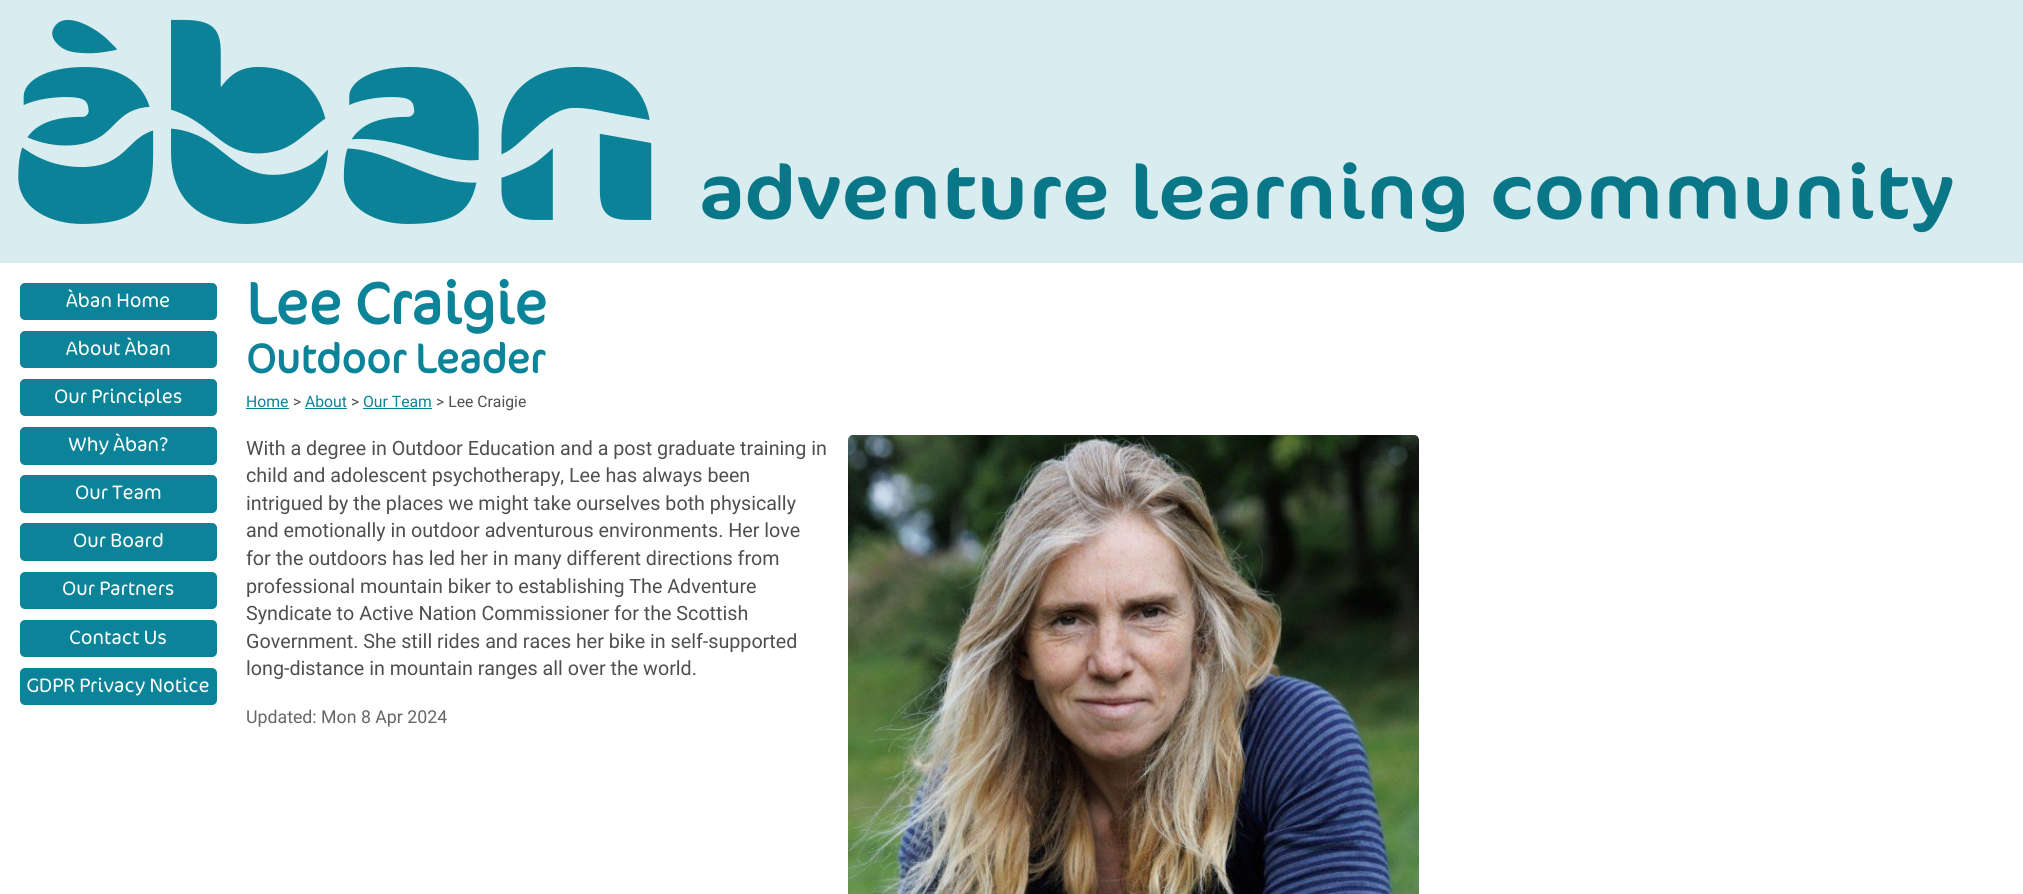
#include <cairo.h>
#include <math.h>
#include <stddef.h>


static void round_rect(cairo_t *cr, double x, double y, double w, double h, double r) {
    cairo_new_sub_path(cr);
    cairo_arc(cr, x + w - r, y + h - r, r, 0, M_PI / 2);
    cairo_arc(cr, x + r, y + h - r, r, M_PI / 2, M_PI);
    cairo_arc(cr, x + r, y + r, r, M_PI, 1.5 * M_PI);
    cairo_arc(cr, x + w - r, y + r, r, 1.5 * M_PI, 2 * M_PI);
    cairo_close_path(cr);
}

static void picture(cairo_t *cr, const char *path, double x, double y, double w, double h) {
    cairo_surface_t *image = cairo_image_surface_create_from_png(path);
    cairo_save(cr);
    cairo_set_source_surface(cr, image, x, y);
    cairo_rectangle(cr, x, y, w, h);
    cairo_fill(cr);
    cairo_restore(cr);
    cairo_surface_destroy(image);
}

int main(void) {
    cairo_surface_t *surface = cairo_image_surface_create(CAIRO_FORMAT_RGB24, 2023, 894);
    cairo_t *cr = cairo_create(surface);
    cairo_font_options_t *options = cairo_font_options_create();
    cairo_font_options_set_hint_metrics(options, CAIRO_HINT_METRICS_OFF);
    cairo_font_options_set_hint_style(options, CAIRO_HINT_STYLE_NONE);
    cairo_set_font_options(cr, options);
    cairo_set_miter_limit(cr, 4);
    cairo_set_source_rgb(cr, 1, 1, 1);
    cairo_paint(cr);
    cairo_set_source_rgb(cr, 0.851, 0.925, 0.937);
    cairo_rectangle(cr, 0, 0, 2023, 263);
    cairo_fill(cr);
    picture(cr, "img1.png", 18, 19, 1935, 214);
    cairo_set_source_rgb(cr, 0.043, 0.514, 0.596);
    round_rect(cr, 20, 283, 197, 37, 5);
    cairo_fill(cr);
    cairo_select_font_face(cr, "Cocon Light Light", CAIRO_FONT_SLANT_NORMAL, CAIRO_FONT_WEIGHT_NORMAL);
    cairo_set_font_size(cr, 19.7);
    cairo_set_source_rgb(cr, 0.988, 0.988, 0.988);
    cairo_move_to(cr, 66, 307);
    cairo_show_text(cr, "Àban Home");
    cairo_set_source_rgb(cr, 0.043, 0.514, 0.596);
    round_rect(cr, 20, 331, 197, 37, 5);
    cairo_fill(cr);
    cairo_set_source_rgb(cr, 0.988, 0.988, 0.988);
    cairo_move_to(cr, 66, 355);
    cairo_show_text(cr, "About Àban");
    cairo_set_source_rgb(cr, 0.043, 0.514, 0.596);
    round_rect(cr, 20, 379, 197, 37, 5);
    cairo_fill(cr);
    cairo_set_source_rgb(cr, 0.988, 0.988, 0.988);
    cairo_move_to(cr, 54, 403);
    cairo_show_text(cr, "Our Principles");
    cairo_set_source_rgb(cr, 0.043, 0.514, 0.596);
    round_rect(cr, 20, 427, 197, 38, 5);
    cairo_fill(cr);
    cairo_set_source_rgb(cr, 0.988, 0.988, 0.988);
    cairo_move_to(cr, 68, 451);
    cairo_show_text(cr, "Why Àban?");
    cairo_set_source_rgb(cr, 0.043, 0.514, 0.596);
    round_rect(cr, 20, 475, 197, 38, 5);
    cairo_fill(cr);
    cairo_set_source_rgb(cr, 0.988, 0.988, 0.988);
    cairo_move_to(cr, 75, 499);
    cairo_show_text(cr, "Our Team");
    cairo_set_source_rgb(cr, 0.043, 0.514, 0.596);
    round_rect(cr, 20, 523, 197, 38, 5);
    cairo_fill(cr);
    cairo_set_source_rgb(cr, 0.988, 0.988, 0.988);
    cairo_move_to(cr, 73, 547);
    cairo_show_text(cr, "Our Board");
    cairo_set_source_rgb(cr, 0.043, 0.514, 0.596);
    round_rect(cr, 20, 572, 197, 37, 5);
    cairo_fill(cr);
    cairo_set_source_rgb(cr, 0.988, 0.988, 0.988);
    cairo_move_to(cr, 62, 595);
    cairo_show_text(cr, "Our Partners");
    cairo_set_source_rgb(cr, 0.043, 0.514, 0.596);
    round_rect(cr, 20, 620, 197, 37, 5);
    cairo_fill(cr);
    cairo_set_source_rgb(cr, 0.988, 0.988, 0.988);
    cairo_move_to(cr, 69, 644);
    cairo_show_text(cr, "Contact Us");
    cairo_set_source_rgb(cr, 0.043, 0.514, 0.596);
    round_rect(cr, 20, 668, 197, 37, 5);
    cairo_fill(cr);
    cairo_set_source_rgb(cr, 0.988, 0.988, 0.988);
    cairo_move_to(cr, 26, 692);
    cairo_show_text(cr, "GDPR Privacy Notice");
    cairo_select_font_face(cr, "Cocon Light", CAIRO_FONT_SLANT_NORMAL, CAIRO_FONT_WEIGHT_BOLD);
    cairo_set_font_size(cr, 59);
    cairo_set_source_rgb(cr, 0.043, 0.514, 0.596);
    cairo_move_to(cr, 246, 324);
    cairo_show_text(cr, "Lee Craigie");
    cairo_set_font_size(cr, 41.5);
    cairo_move_to(cr, 246, 373);
    cairo_show_text(cr, "Outdoor Leader");
    cairo_select_font_face(cr, "Roboto", CAIRO_FONT_SLANT_NORMAL, CAIRO_FONT_WEIGHT_NORMAL);
    cairo_set_font_size(cr, 15.75);
    cairo_move_to(cr, 246, 407);
    cairo_show_text(cr, "Home");
    cairo_set_source_rgb(cr, 0.043, 0.522, 0.596);
    cairo_rectangle(cr, 246, 408, 43, 1);
    cairo_fill(cr);
    cairo_set_source_rgb(cr, 0.31, 0.31, 0.31);
    cairo_move_to(cr, 293, 407);
    cairo_show_text(cr, ">");
    cairo_set_source_rgb(cr, 0.043, 0.514, 0.596);
    cairo_move_to(cr, 305, 407);
    cairo_show_text(cr, "About");
    cairo_set_source_rgb(cr, 0.043, 0.522, 0.596);
    cairo_rectangle(cr, 305, 408, 42, 1);
    cairo_fill(cr);
    cairo_set_source_rgb(cr, 0.31, 0.31, 0.31);
    cairo_move_to(cr, 351, 407);
    cairo_show_text(cr, ">");
    cairo_set_source_rgb(cr, 0.043, 0.514, 0.596);
    cairo_move_to(cr, 363, 407);
    cairo_show_text(cr, "Our Team");
    cairo_set_source_rgb(cr, 0.043, 0.522, 0.596);
    cairo_rectangle(cr, 363, 408, 69, 1);
    cairo_fill(cr);
    cairo_set_source_rgb(cr, 0.31, 0.31, 0.31);
    cairo_move_to(cr, 436, 407);
    cairo_show_text(cr, "> Lee Craigie");
    cairo_set_font_size(cr, 19.7);
    cairo_move_to(cr, 246, 455);
    cairo_show_text(cr, "With a degree in Outdoor Education and a post graduate training in");
    cairo_move_to(cr, 246, 482);
    cairo_show_text(cr, "child and adolescent psychotherapy, Lee has always been");
    cairo_move_to(cr, 246, 510);
    cairo_show_text(cr, "intrigued by the places we might take ourselves both physically");
    cairo_move_to(cr, 246, 537);
    cairo_show_text(cr, "and emotionally in outdoor adventurous environments. Her love");
    cairo_move_to(cr, 246, 565);
    cairo_show_text(cr, "for the outdoors has led her in many different directions from");
    cairo_move_to(cr, 246, 593);
    cairo_show_text(cr, "professional mountain biker to establishing The Adventure");
    cairo_move_to(cr, 246, 620);
    cairo_show_text(cr, "Syndicate to Active Nation Commissioner for the Scottish");
    cairo_move_to(cr, 246, 648);
    cairo_show_text(cr, "Government. She still rides and races her bike in self-supported");
    cairo_move_to(cr, 246, 675);
    cairo_show_text(cr, "long-distance in mountain ranges all over the world.");
    picture(cr, "img2.png", 848, 435, 571, 459);
    cairo_set_font_size(cr, 17.75);
    cairo_set_source_rgb(cr, 0.4, 0.4, 0.4);
    cairo_move_to(cr, 246, 723);
    cairo_show_text(cr, "Updated: Mon 8 Apr 2024");
    cairo_surface_write_to_png(surface, "page.png");
    cairo_font_options_destroy(options);
    cairo_destroy(cr);
    cairo_surface_destroy(surface);
    return 0;
}
